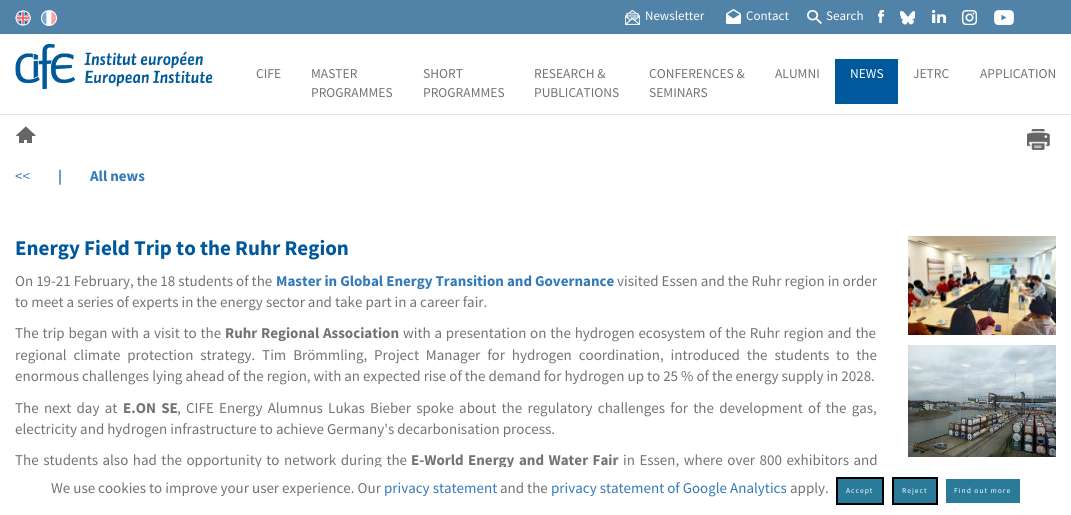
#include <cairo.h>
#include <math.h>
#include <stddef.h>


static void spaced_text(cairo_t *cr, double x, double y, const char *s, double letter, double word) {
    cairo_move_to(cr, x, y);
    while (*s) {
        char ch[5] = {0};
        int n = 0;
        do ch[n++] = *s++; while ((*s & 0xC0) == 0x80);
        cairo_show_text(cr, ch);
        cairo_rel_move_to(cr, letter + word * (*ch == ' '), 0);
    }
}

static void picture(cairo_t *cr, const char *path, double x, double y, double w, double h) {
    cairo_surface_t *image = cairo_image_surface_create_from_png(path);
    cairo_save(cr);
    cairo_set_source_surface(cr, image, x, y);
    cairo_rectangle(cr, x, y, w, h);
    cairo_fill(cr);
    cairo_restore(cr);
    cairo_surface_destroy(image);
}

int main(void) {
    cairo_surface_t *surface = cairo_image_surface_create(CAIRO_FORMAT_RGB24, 1071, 515);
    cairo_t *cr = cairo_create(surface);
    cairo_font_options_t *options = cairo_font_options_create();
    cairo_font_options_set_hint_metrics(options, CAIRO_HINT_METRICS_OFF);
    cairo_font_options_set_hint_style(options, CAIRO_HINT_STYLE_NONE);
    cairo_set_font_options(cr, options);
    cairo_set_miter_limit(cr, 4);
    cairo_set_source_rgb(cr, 1, 1, 1);
    cairo_paint(cr);
    cairo_set_source_rgb(cr, 0.318, 0.51, 0.659);
    cairo_rectangle(cr, 0, 0, 1071, 34);
    cairo_fill(cr);
    picture(cr, "img1.png", 15, 10, 16, 16);
    picture(cr, "img2.png", 41, 10, 16, 16);
    picture(cr, "img3.png", 625, 10, 15, 15);
    cairo_select_font_face(cr, "Source Sans Pro", CAIRO_FONT_SLANT_NORMAL, CAIRO_FONT_WEIGHT_NORMAL);
    cairo_set_font_size(cr, 13);
    cairo_set_source_rgb(cr, 1, 1, 1);
    cairo_move_to(cr, 645, 20);
    cairo_show_text(cr, "Newsletter");
    picture(cr, "img4.png", 726, 9, 15, 15);
    cairo_move_to(cr, 746, 20);
    cairo_show_text(cr, "Contact");
    picture(cr, "img5.png", 807, 10, 15, 14);
    cairo_move_to(cr, 826, 20);
    cairo_show_text(cr, "Search");
    picture(cr, "img6.png", 878, 10, 6, 13);
    picture(cr, "img7.png", 900, 10, 15, 15);
    picture(cr, "img8.png", 932, 10, 14, 13);
    picture(cr, "img9.png", 962, 10, 15, 15);
    picture(cr, "img10.png", 994, 10, 20, 15);
    picture(cr, "img11.png", 15, 44, 198, 45);
    cairo_set_font_size(cr, 13.5);
    cairo_set_source_rgb(cr, 0.451, 0.451, 0.451);
    cairo_move_to(cr, 256, 78);
    cairo_show_text(cr, "CIFE");
    cairo_move_to(cr, 311, 78);
    cairo_show_text(cr, "MASTER");
    cairo_move_to(cr, 311, 97);
    cairo_show_text(cr, "PROGRAMMES");
    cairo_move_to(cr, 423, 78);
    cairo_show_text(cr, "SHORT");
    cairo_move_to(cr, 423, 97);
    cairo_show_text(cr, "PROGRAMMES");
    cairo_move_to(cr, 534, 78);
    cairo_show_text(cr, "RESEARCH &");
    cairo_move_to(cr, 534, 97);
    cairo_show_text(cr, "PUBLICATIONS");
    cairo_move_to(cr, 649, 78);
    cairo_show_text(cr, "CONFERENCES &");
    cairo_move_to(cr, 649, 97);
    cairo_show_text(cr, "SEMINARS");
    cairo_move_to(cr, 775, 78);
    cairo_show_text(cr, "ALUMNI");
    cairo_set_source_rgb(cr, 0, 0.345, 0.612);
    cairo_rectangle(cr, 835, 59, 63, 45);
    cairo_fill(cr);
    cairo_set_source_rgb(cr, 1, 1, 1);
    cairo_move_to(cr, 850, 78);
    cairo_show_text(cr, "NEWS");
    cairo_set_source_rgb(cr, 0.451, 0.451, 0.451);
    cairo_move_to(cr, 913, 78);
    cairo_show_text(cr, "JETRC");
    cairo_move_to(cr, 980, 78);
    cairo_show_text(cr, "APPLICATION");
    cairo_set_source_rgb(cr, 0.902, 0.902, 0.902);
    cairo_rectangle(cr, 0, 114, 1071, 1);
    cairo_fill(cr);
    picture(cr, "img12.png", 15, 126, 21, 17);
    picture(cr, "img13.png", 1027, 129, 23, 21);
    cairo_set_font_size(cr, 15);
    cairo_set_source_rgb(cr, 0.2, 0.478, 0.718);
    cairo_move_to(cr, 15, 181);
    cairo_show_text(cr, "<<");
    cairo_select_font_face(cr, "Source Sans Pro", CAIRO_FONT_SLANT_NORMAL, CAIRO_FONT_WEIGHT_BOLD);
    cairo_move_to(cr, 58, 181);
    cairo_show_text(cr, "|");
    cairo_move_to(cr, 90, 181);
    cairo_show_text(cr, "All news");
    cairo_set_font_size(cr, 21);
    cairo_set_source_rgb(cr, 0, 0.345, 0.612);
    cairo_move_to(cr, 15, 255);
    cairo_show_text(cr, "Energy Field Trip to the Ruhr Region");
    cairo_select_font_face(cr, "Source Sans Pro", CAIRO_FONT_SLANT_NORMAL, CAIRO_FONT_WEIGHT_NORMAL);
    cairo_set_font_size(cr, 15);
    cairo_set_source_rgb(cr, 0.451, 0.451, 0.451);
    cairo_move_to(cr, 15, 286);
    cairo_show_text(cr, "On 19-21 February, the 18 students of the");
    cairo_select_font_face(cr, "Source Sans Pro", CAIRO_FONT_SLANT_NORMAL, CAIRO_FONT_WEIGHT_BOLD);
    cairo_set_source_rgb(cr, 0.2, 0.478, 0.718);
    cairo_move_to(cr, 276, 286);
    cairo_show_text(cr, "Master in Global Energy Transition and Governance");
    cairo_select_font_face(cr, "Source Sans Pro", CAIRO_FONT_SLANT_NORMAL, CAIRO_FONT_WEIGHT_NORMAL);
    cairo_set_source_rgb(cr, 0.451, 0.451, 0.451);
    cairo_move_to(cr, 617, 286);
    cairo_show_text(cr, "visited Essen and the Ruhr region in order");
    cairo_move_to(cr, 15, 307);
    cairo_show_text(cr, "to meet a series of experts in the energy sector and take part in a career fair.");
    spaced_text(cr, 15, 338, "The trip began with a visit to the", 0, 0.75);
    cairo_select_font_face(cr, "Source Sans Pro", CAIRO_FONT_SLANT_NORMAL, CAIRO_FONT_WEIGHT_BOLD);
    spaced_text(cr, 225, 338, "Ruhr Regional Association", 0, 0.75);
    cairo_select_font_face(cr, "Source Sans Pro", CAIRO_FONT_SLANT_NORMAL, CAIRO_FONT_WEIGHT_NORMAL);
    spaced_text(cr, 403, 338, "with a presentation on the hydrogen ecosystem of the Ruhr region and the", 0, 0.75);
    spaced_text(cr, 15, 360, "regional climate protection strategy. Tim Brömmling, Project Manager for hydrogen coordination, introduced the students to the", 0, 3.9);
    cairo_move_to(cr, 15, 381);
    cairo_show_text(cr, "enormous challenges lying ahead of the region, with an expected rise of the demand for hydrogen up to 25 % of the energy supply in 2028.");
    spaced_text(cr, 15, 413, "The next day at", 0, 2.25);
    cairo_select_font_face(cr, "Source Sans Pro", CAIRO_FONT_SLANT_NORMAL, CAIRO_FONT_WEIGHT_BOLD);
    spaced_text(cr, 123, 413, "E.ON SE", 0, 2.25);
    cairo_select_font_face(cr, "Source Sans Pro", CAIRO_FONT_SLANT_NORMAL, CAIRO_FONT_WEIGHT_NORMAL);
    spaced_text(cr, 177, 413, ", CIFE Energy Alumnus Lukas Bieber spoke about the regulatory challenges for the development of the gas,", 0, 2.25);
    cairo_move_to(cr, 15, 434);
    cairo_show_text(cr, "electricity and hydrogen infrastructure to achieve Germany's decarbonisation process.");
    spaced_text(cr, 15, 465, "The students also had the opportunity to network during the", 0, 1.5);
    cairo_select_font_face(cr, "Source Sans Pro", CAIRO_FONT_SLANT_NORMAL, CAIRO_FONT_WEIGHT_BOLD);
    spaced_text(cr, 411, 465, "E-World Energy and Water Fair", 0, 1.5);
    cairo_select_font_face(cr, "Source Sans Pro", CAIRO_FONT_SLANT_NORMAL, CAIRO_FONT_WEIGHT_NORMAL);
    spaced_text(cr, 623, 465, "in Essen, where over 800 exhibitors and", 0, 1.5);
    picture(cr, "img14.png", 908, 236, 148, 99);
    picture(cr, "img15.png", 908, 345, 148, 112);
    cairo_set_source_rgb(cr, 1, 1, 1);
    cairo_rectangle(cr, 195, 467, 483, 2);
    cairo_fill(cr);
    cairo_set_source_rgb(cr, 0.451, 0.451, 0.451);
    cairo_move_to(cr, 51, 493);
    cairo_show_text(cr, "We use cookies to improve your user experience. Our");
    cairo_set_source_rgb(cr, 0.2, 0.478, 0.718);
    cairo_move_to(cr, 384, 493);
    cairo_show_text(cr, "privacy statement");
    cairo_set_source_rgb(cr, 0.451, 0.451, 0.451);
    cairo_move_to(cr, 500, 493);
    cairo_show_text(cr, "and the");
    cairo_set_source_rgb(cr, 0.2, 0.478, 0.718);
    cairo_move_to(cr, 551, 493);
    cairo_show_text(cr, "privacy statement of Google Analytics");
    cairo_set_source_rgb(cr, 0.451, 0.451, 0.451);
    cairo_move_to(cr, 790, 493);
    cairo_show_text(cr, "apply.");
    cairo_set_source_rgb(cr, 0.165, 0.478, 0.6);
    cairo_rectangle(cr, 837, 478, 46, 26);
    cairo_fill_preserve(cr);
    cairo_set_source_rgb(cr, 0, 0, 0);
    cairo_stroke(cr);
    cairo_set_font_size(cr, 7.5);
    cairo_set_source_rgb(cr, 1, 1, 1);
    spaced_text(cr, 846, 493, "Accept", 1, 0);
    cairo_set_source_rgb(cr, 0.165, 0.478, 0.6);
    cairo_rectangle(cr, 893, 478, 44, 26);
    cairo_fill_preserve(cr);
    cairo_set_source_rgb(cr, 0, 0, 0);
    cairo_stroke(cr);
    cairo_set_source_rgb(cr, 1, 1, 1);
    spaced_text(cr, 902, 493, "Reject", 1, 0);
    cairo_set_source_rgb(cr, 0.165, 0.478, 0.6);
    cairo_rectangle(cr, 946, 479, 74, 24);
    cairo_fill(cr);
    cairo_set_source_rgb(cr, 1, 1, 1);
    spaced_text(cr, 954, 493, "Find out more", 1, 0);
    cairo_surface_write_to_png(surface, "page.png");
    cairo_font_options_destroy(options);
    cairo_destroy(cr);
    cairo_surface_destroy(surface);
    return 0;
}
